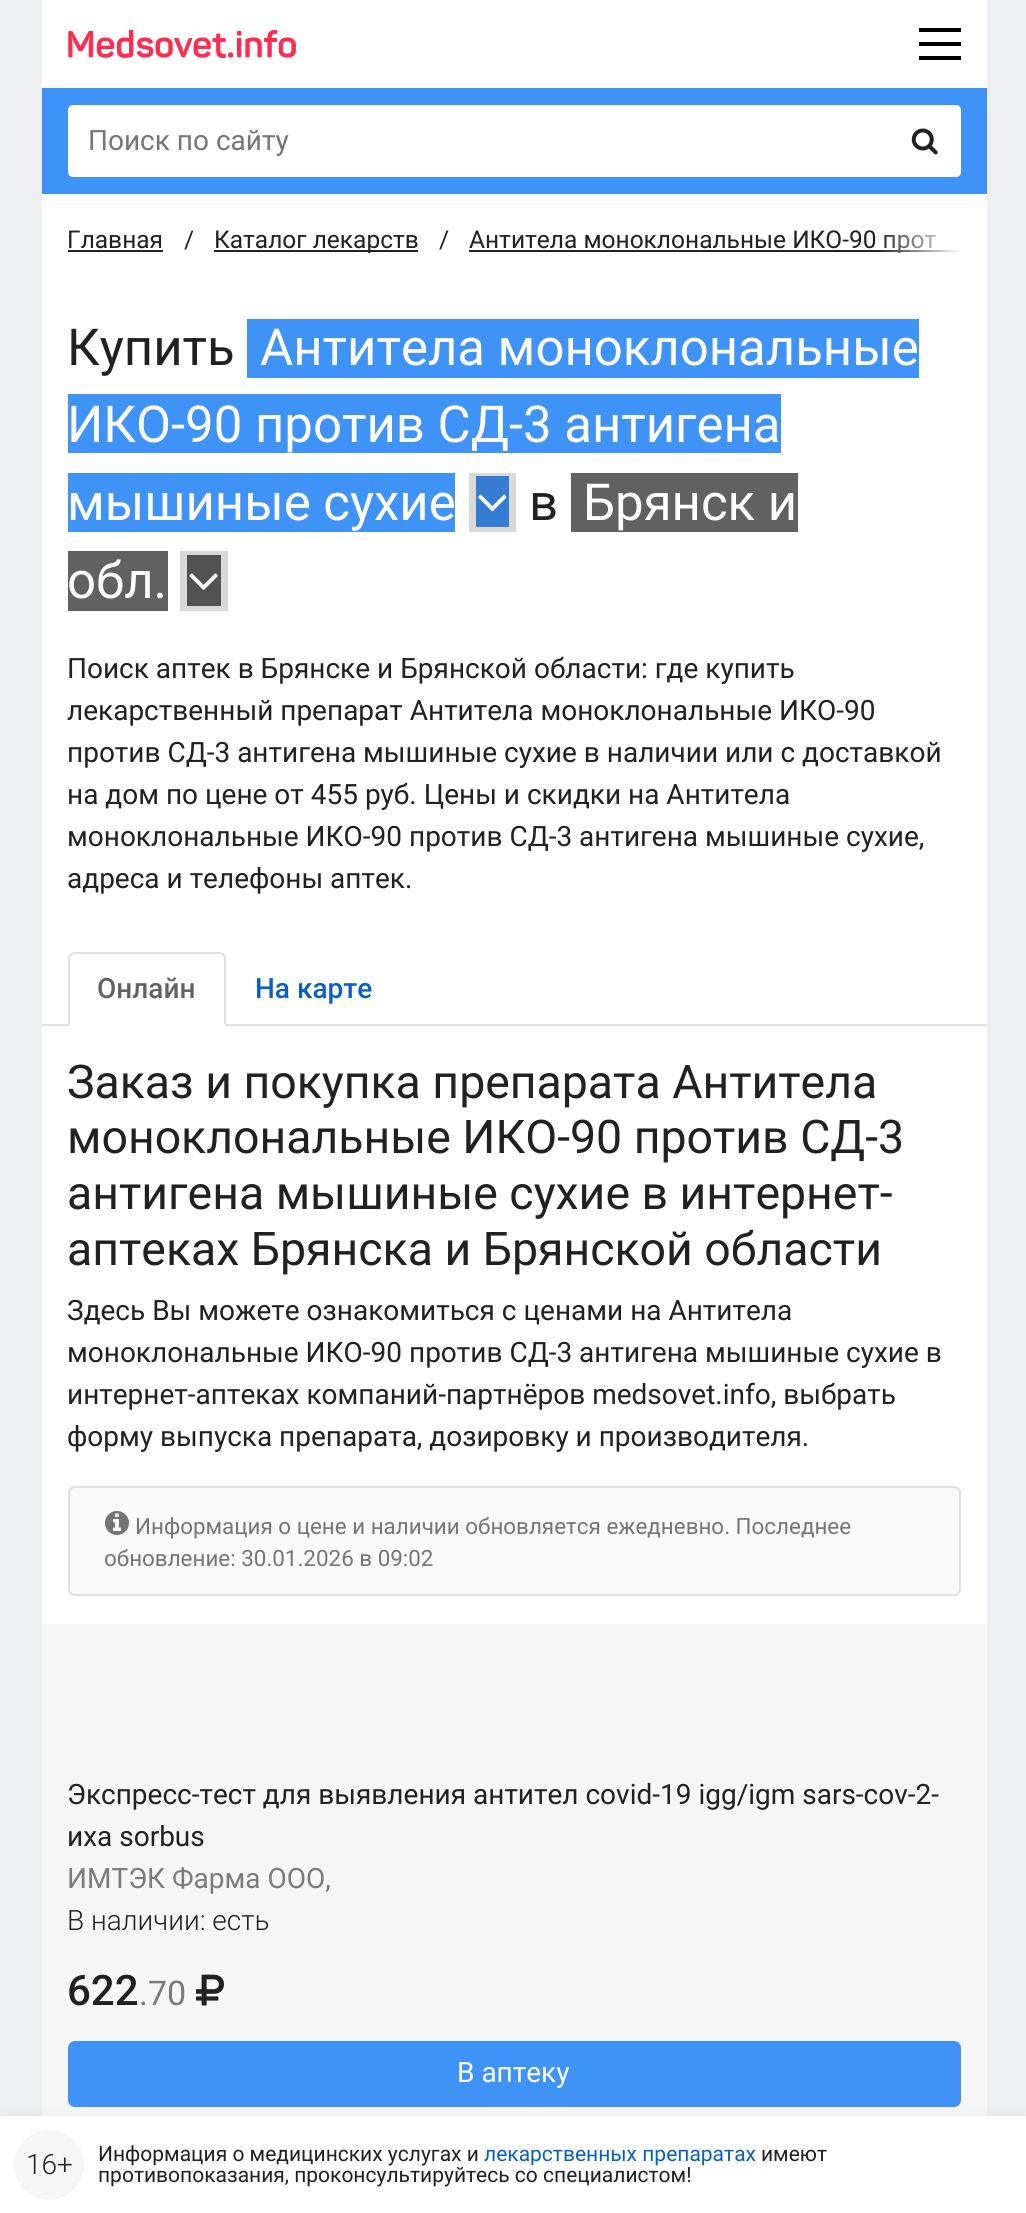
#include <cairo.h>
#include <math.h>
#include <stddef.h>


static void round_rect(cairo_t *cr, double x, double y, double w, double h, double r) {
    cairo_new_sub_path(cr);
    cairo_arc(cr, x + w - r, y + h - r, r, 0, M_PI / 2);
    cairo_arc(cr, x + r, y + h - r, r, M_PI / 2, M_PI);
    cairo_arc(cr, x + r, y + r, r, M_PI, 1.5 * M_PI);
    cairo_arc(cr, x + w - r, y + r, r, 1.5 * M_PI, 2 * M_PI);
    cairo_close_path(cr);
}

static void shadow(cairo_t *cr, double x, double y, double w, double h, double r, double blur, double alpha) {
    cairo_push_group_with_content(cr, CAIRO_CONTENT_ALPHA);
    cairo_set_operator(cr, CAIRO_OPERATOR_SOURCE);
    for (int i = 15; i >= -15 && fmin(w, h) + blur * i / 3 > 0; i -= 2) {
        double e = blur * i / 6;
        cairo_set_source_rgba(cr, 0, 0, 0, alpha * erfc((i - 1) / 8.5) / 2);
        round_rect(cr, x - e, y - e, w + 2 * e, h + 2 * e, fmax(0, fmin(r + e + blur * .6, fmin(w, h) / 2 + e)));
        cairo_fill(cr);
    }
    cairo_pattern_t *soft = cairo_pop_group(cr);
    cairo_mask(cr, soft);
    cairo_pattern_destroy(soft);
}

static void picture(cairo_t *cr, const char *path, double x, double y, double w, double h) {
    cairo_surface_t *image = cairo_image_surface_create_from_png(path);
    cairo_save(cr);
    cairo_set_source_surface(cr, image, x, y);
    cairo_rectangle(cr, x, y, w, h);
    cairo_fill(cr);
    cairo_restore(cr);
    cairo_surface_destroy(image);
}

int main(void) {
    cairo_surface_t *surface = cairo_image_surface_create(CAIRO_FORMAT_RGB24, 1026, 2213);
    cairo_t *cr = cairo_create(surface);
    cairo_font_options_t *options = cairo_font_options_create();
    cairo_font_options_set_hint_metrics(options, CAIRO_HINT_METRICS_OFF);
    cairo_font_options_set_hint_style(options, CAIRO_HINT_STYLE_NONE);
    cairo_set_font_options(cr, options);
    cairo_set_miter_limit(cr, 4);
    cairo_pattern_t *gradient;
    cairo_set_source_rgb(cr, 0.929, 0.937, 0.949);
    cairo_paint(cr);
    cairo_set_source_rgb(cr, 1, 1, 1);
    cairo_rectangle(cr, 42, 0, 945, 88);
    cairo_fill(cr);
    picture(cr, "img1.png", 68, 30, 228, 28);
    cairo_set_source_rgb(cr, 0, 0, 0);
    cairo_rectangle(cr, 919, 28, 42, 4);
    cairo_fill(cr);
    cairo_rectangle(cr, 919, 42, 42, 4);
    cairo_fill(cr);
    cairo_rectangle(cr, 919, 56, 42, 4);
    cairo_fill(cr);
    cairo_set_source_rgb(cr, 0.247, 0.576, 0.965);
    cairo_rectangle(cr, 42, 88, 945, 106);
    cairo_fill(cr);
    cairo_set_source_rgb(cr, 1, 1, 1);
    round_rect(cr, 68, 105, 893, 72, 5);
    cairo_fill(cr);
    cairo_select_font_face(cr, "Roboto", CAIRO_FONT_SLANT_NORMAL, CAIRO_FONT_WEIGHT_NORMAL);
    cairo_set_font_size(cr, 28);
    cairo_set_source_rgb(cr, 0.459, 0.459, 0.459);
    cairo_move_to(cr, 88, 150);
    cairo_show_text(cr, "Поиск по сайту");
    picture(cr, "img2.png", 911, 128, 27, 27);
    cairo_set_source_rgb(cr, 1, 1, 1);
    cairo_rectangle(cr, 42, 194, 945, 1430);
    cairo_fill(cr);
    cairo_set_source_rgb(cr, 0.851, 0.851, 0.851);
    cairo_rectangle(cr, 180, 551, 48, 60);
    cairo_fill(cr);
    cairo_rectangle(cr, 469, 473, 47, 59);
    cairo_fill(cr);
    cairo_set_font_size(cr, 24.5);
    cairo_set_source_rgb(cr, 0.129, 0.129, 0.129);
    cairo_move_to(cr, 67, 248);
    cairo_show_text(cr, "Главная");
    cairo_rectangle(cr, 68, 250, 95, 2);
    cairo_fill(cr);
    cairo_move_to(cr, 184, 248);
    cairo_show_text(cr, "/");
    cairo_rectangle(cr, 214, 250, 204, 2);
    cairo_fill(cr);
    cairo_move_to(cr, 214, 248);
    cairo_show_text(cr, "Каталог лекарств");
    cairo_move_to(cr, 439, 248);
    cairo_show_text(cr, "/");
    cairo_rectangle(cr, 469, 250, 492, 2);
    cairo_fill(cr);
    cairo_move_to(cr, 469, 248);
    cairo_show_text(cr, "Антитела моноклональные ИКО-90 прот");
    gradient = cairo_pattern_create_linear(877, 241, 961, 241);
    cairo_pattern_add_color_stop_rgba(gradient, 0, 1, 1, 1, 0);
    cairo_pattern_add_color_stop_rgba(gradient, 1, 1, 1, 1, 1);
    cairo_set_source(cr, gradient);
    cairo_pattern_destroy(gradient);
    cairo_rectangle(cr, 879, 234, 82, 19);
    cairo_fill(cr);
    cairo_set_font_size(cr, 50.9);
    cairo_set_source_rgb(cr, 0.129, 0.129, 0.129);
    cairo_move_to(cr, 67, 365);
    cairo_show_text(cr, "Купить");
    cairo_set_source_rgb(cr, 0.247, 0.576, 0.965);
    cairo_rectangle(cr, 247, 319, 672, 59);
    cairo_fill(cr);
    cairo_set_source_rgb(cr, 1, 1, 1);
    cairo_move_to(cr, 260, 365);
    cairo_show_text(cr, "Антитела моноклональные");
    cairo_set_source_rgb(cr, 0.247, 0.576, 0.965);
    cairo_rectangle(cr, 68, 394, 713, 59);
    cairo_fill(cr);
    cairo_set_source_rgb(cr, 1, 1, 1);
    cairo_move_to(cr, 67, 442);
    cairo_show_text(cr, "ИКО-90 против СД-3 антигена");
    cairo_set_source_rgb(cr, 0.247, 0.576, 0.965);
    cairo_rectangle(cr, 68, 473, 387, 59);
    cairo_fill(cr);
    cairo_set_source_rgb(cr, 1, 1, 1);
    cairo_move_to(cr, 67, 520);
    cairo_show_text(cr, "мышиные сухие");
    cairo_set_source_rgb(cr, 0.212, 0.49, 0.82);
    cairo_rectangle(cr, 476, 476, 33, 51);
    cairo_fill(cr);
    picture(cr, "img3.png", 478, 494, 29, 18);
    cairo_set_source_rgb(cr, 0.129, 0.129, 0.129);
    cairo_move_to(cr, 529, 520);
    cairo_show_text(cr, "в");
    cairo_set_source_rgb(cr, 0.38, 0.38, 0.38);
    cairo_rectangle(cr, 571, 473, 227, 59);
    cairo_fill(cr);
    cairo_set_source_rgb(cr, 1, 1, 1);
    cairo_move_to(cr, 583, 520);
    cairo_show_text(cr, "Брянск и");
    cairo_set_source_rgb(cr, 0.38, 0.38, 0.38);
    cairo_rectangle(cr, 68, 551, 100, 60);
    cairo_fill(cr);
    cairo_set_source_rgb(cr, 1, 1, 1);
    cairo_move_to(cr, 67, 598);
    cairo_show_text(cr, "обл.");
    cairo_set_source_rgb(cr, 0.322, 0.322, 0.322);
    cairo_rectangle(cr, 187, 555, 34, 51);
    cairo_fill(cr);
    picture(cr, "img4.png", 189, 573, 29, 17);
    cairo_set_font_size(cr, 28);
    cairo_set_source_rgb(cr, 0.129, 0.129, 0.129);
    cairo_move_to(cr, 67, 678);
    cairo_show_text(cr, "Поиск аптек в Брянске и Брянской области: где купить");
    cairo_move_to(cr, 67, 720);
    cairo_show_text(cr, "лекарственный препарат Антитела моноклональные ИКО-90");
    cairo_move_to(cr, 67, 762);
    cairo_show_text(cr, "против СД-3 антигена мышиные сухие в наличии или с доставкой");
    cairo_move_to(cr, 67, 804);
    cairo_show_text(cr, "на дом по цене от 455 руб. Цены и скидки на Антитела");
    cairo_move_to(cr, 67, 846);
    cairo_show_text(cr, "моноклональные ИКО-90 против СД-3 антигена мышиные сухие,");
    cairo_move_to(cr, 67, 888);
    cairo_show_text(cr, "адреса и телефоны аптек.");
    cairo_set_source_rgb(cr, 0.878, 0.878, 0.878);
    cairo_rectangle(cr, 42, 1024, 945, 2);
    cairo_fill(cr);
    cairo_set_source_rgb(cr, 1, 1, 1);
    cairo_new_path(cr);
    cairo_move_to(cr, 75, 952);
    cairo_line_to(cr, 219, 952);
    cairo_curve_to(cr, 223, 952, 226, 955, 226, 959);
    cairo_line_to(cr, 226, 1026);
    cairo_line_to(cr, 68, 1026);
    cairo_line_to(cr, 68, 959);
    cairo_curve_to(cr, 68, 955, 71, 952, 75, 952);
    cairo_close_path(cr);
    cairo_fill(cr);
    cairo_set_source_rgb(cr, 0.878, 0.878, 0.878);
    cairo_new_path(cr);
    cairo_move_to(cr, 75, 952);
    cairo_curve_to(cr, 73, 952, 71, 953, 70, 954);
    cairo_line_to(cr, 72, 955);
    cairo_curve_to(cr, 72, 954, 74, 954, 75, 954);
    cairo_line_to(cr, 219, 954);
    cairo_curve_to(cr, 220, 954, 222, 954, 222, 955);
    cairo_line_to(cr, 224, 954);
    cairo_curve_to(cr, 223, 953, 221, 952, 219, 952);
    cairo_close_path(cr);
    cairo_fill(cr);
    cairo_new_path(cr);
    cairo_move_to(cr, 224, 954);
    cairo_line_to(cr, 226, 957);
    cairo_line_to(cr, 226, 1026);
    cairo_line_to(cr, 224, 1024);
    cairo_line_to(cr, 224, 958);
    cairo_line_to(cr, 222, 955);
    cairo_close_path(cr);
    cairo_fill(cr);
    cairo_set_source_rgb(cr, 1, 1, 1);
    cairo_new_path(cr);
    cairo_move_to(cr, 226, 1026);
    cairo_line_to(cr, 224, 1024);
    cairo_line_to(cr, 70, 1024);
    cairo_line_to(cr, 68, 1026);
    cairo_close_path(cr);
    cairo_fill(cr);
    cairo_set_source_rgb(cr, 0.878, 0.878, 0.878);
    cairo_new_path(cr);
    cairo_move_to(cr, 68, 1026);
    cairo_line_to(cr, 68, 957);
    cairo_line_to(cr, 70, 954);
    cairo_line_to(cr, 72, 955);
    cairo_line_to(cr, 70, 958);
    cairo_line_to(cr, 70, 1024);
    cairo_close_path(cr);
    cairo_fill(cr);
    cairo_select_font_face(cr, "Roboto Medium", CAIRO_FONT_SLANT_NORMAL, CAIRO_FONT_WEIGHT_NORMAL);
    cairo_set_source_rgb(cr, 0.38, 0.38, 0.38);
    cairo_move_to(cr, 97, 998);
    cairo_show_text(cr, "Онлайн");
    cairo_set_source_rgb(cr, 0.035, 0.376, 0.776);
    cairo_move_to(cr, 255, 998);
    cairo_show_text(cr, "На карте");
    cairo_select_font_face(cr, "Roboto", CAIRO_FONT_SLANT_NORMAL, CAIRO_FONT_WEIGHT_NORMAL);
    cairo_set_font_size(cr, 46.4);
    cairo_set_source_rgb(cr, 0.129, 0.129, 0.129);
    cairo_move_to(cr, 67, 1098);
    cairo_show_text(cr, "Заказ и покупка препарата Антитела");
    cairo_move_to(cr, 67, 1153);
    cairo_show_text(cr, "моноклональные ИКО-90 против СД-3");
    cairo_move_to(cr, 67, 1209);
    cairo_show_text(cr, "антигена мышиные сухие в интернет-");
    cairo_move_to(cr, 67, 1265);
    cairo_show_text(cr, "аптеках Брянска и Брянской области");
    cairo_set_font_size(cr, 28);
    cairo_move_to(cr, 67, 1320);
    cairo_show_text(cr, "Здесь Вы можете ознакомиться с ценами на Антитела");
    cairo_move_to(cr, 67, 1362);
    cairo_show_text(cr, "моноклональные ИКО-90 против СД-3 антигена мышиные сухие в");
    cairo_move_to(cr, 67, 1404);
    cairo_show_text(cr, "интернет-аптеках компаний-партнёров medsovet.info, выбрать");
    cairo_move_to(cr, 67, 1446);
    cairo_show_text(cr, "форму выпуска препарата, дозировку и производителя.");
    cairo_set_source_rgb(cr, 0.976, 0.976, 0.976);
    round_rect(cr, 69, 1487, 891, 108, 6);
    cairo_fill_preserve(cr);
    cairo_set_source_rgb(cr, 0.878, 0.878, 0.878);
    cairo_stroke(cr);
    picture(cr, "img5.png", 105, 1511, 24, 24);
    cairo_set_font_size(cr, 22.4);
    cairo_set_source_rgb(cr, 0.459, 0.459, 0.459);
    cairo_move_to(cr, 135, 1534);
    cairo_show_text(cr, "Информация о цене и наличии обновляется ежедневно. Последнее");
    cairo_move_to(cr, 104, 1566);
    cairo_show_text(cr, "обновление: 30.01.2026 в 09:02");
    cairo_set_source_rgb(cr, 0.961, 0.961, 0.961);
    cairo_rectangle(cr, 42, 1624, 945, 492);
    cairo_fill(cr);
    cairo_set_font_size(cr, 28);
    cairo_set_source_rgb(cr, 0.129, 0.129, 0.129);
    cairo_move_to(cr, 67, 1804);
    cairo_show_text(cr, "Экспресс-тест для выявления антител covid-19 igg/igm sars-cov-2-");
    cairo_move_to(cr, 67, 1846);
    cairo_show_text(cr, "иха sorbus");
    cairo_set_source_rgb(cr, 0.482, 0.482, 0.482);
    cairo_move_to(cr, 67, 1888);
    cairo_show_text(cr, "ИМТЭК Фарма ООО,");
    cairo_select_font_face(cr, "Roboto Light", CAIRO_FONT_SLANT_NORMAL, CAIRO_FONT_WEIGHT_NORMAL);
    cairo_set_source_rgb(cr, 0.129, 0.129, 0.129);
    cairo_move_to(cr, 67, 1930);
    cairo_show_text(cr, "В наличии: есть");
    cairo_select_font_face(cr, "Roboto Medium", CAIRO_FONT_SLANT_NORMAL, CAIRO_FONT_WEIGHT_NORMAL);
    cairo_set_font_size(cr, 42);
    cairo_move_to(cr, 67, 2005);
    cairo_show_text(cr, "622");
    cairo_select_font_face(cr, "Roboto", CAIRO_FONT_SLANT_NORMAL, CAIRO_FONT_WEIGHT_NORMAL);
    cairo_set_font_size(cr, 34);
    cairo_set_source_rgb(cr, 0.482, 0.482, 0.482);
    cairo_move_to(cr, 139, 2005);
    cairo_show_text(cr, ".70");
    picture(cr, "img6.png", 196, 1974, 28, 32);
    cairo_set_source_rgb(cr, 0.247, 0.576, 0.965);
    round_rect(cr, 69, 2042, 891, 64, 6);
    cairo_fill_preserve(cr);
    cairo_stroke(cr);
    cairo_set_font_size(cr, 28);
    cairo_set_source_rgb(cr, 1, 1, 1);
    cairo_move_to(cr, 457, 2082);
    cairo_show_text(cr, "В аптеку");
    cairo_set_source_rgb(cr, 0, 0, 0);
    shadow(cr, 0, 2130, 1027, 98, 0, 14, 0.15);
    cairo_set_source_rgb(cr, 1, 1, 1);
    cairo_rectangle(cr, 0, 2116, 1026, 97);
    cairo_fill(cr);
    cairo_set_source_rgb(cr, 0.961, 0.961, 0.961);
    cairo_arc(cr, 49, 2165, 35, 0, 2 * M_PI);
    cairo_fill(cr);
    cairo_select_font_face(cr, "Roboto Light", CAIRO_FONT_SLANT_NORMAL, CAIRO_FONT_WEIGHT_NORMAL);
    cairo_set_source_rgb(cr, 0.129, 0.129, 0.129);
    cairo_move_to(cr, 26, 2174);
    cairo_show_text(cr, "16+");
    cairo_select_font_face(cr, "Roboto", CAIRO_FONT_SLANT_NORMAL, CAIRO_FONT_WEIGHT_NORMAL);
    cairo_set_font_size(cr, 21);
    cairo_move_to(cr, 98, 2161);
    cairo_show_text(cr, "Информация о медицинских услугах и");
    cairo_set_source_rgb(cr, 0.035, 0.376, 0.776);
    cairo_move_to(cr, 484, 2161);
    cairo_show_text(cr, "лекарственных препаратах");
    cairo_set_source_rgb(cr, 0.129, 0.129, 0.129);
    cairo_move_to(cr, 761, 2161);
    cairo_show_text(cr, "имеют");
    cairo_move_to(cr, 98, 2182);
    cairo_show_text(cr, "противопоказания, проконсультируйтесь со специалистом!");
    cairo_surface_write_to_png(surface, "page.png");
    cairo_font_options_destroy(options);
    cairo_destroy(cr);
    cairo_surface_destroy(surface);
    return 0;
}
